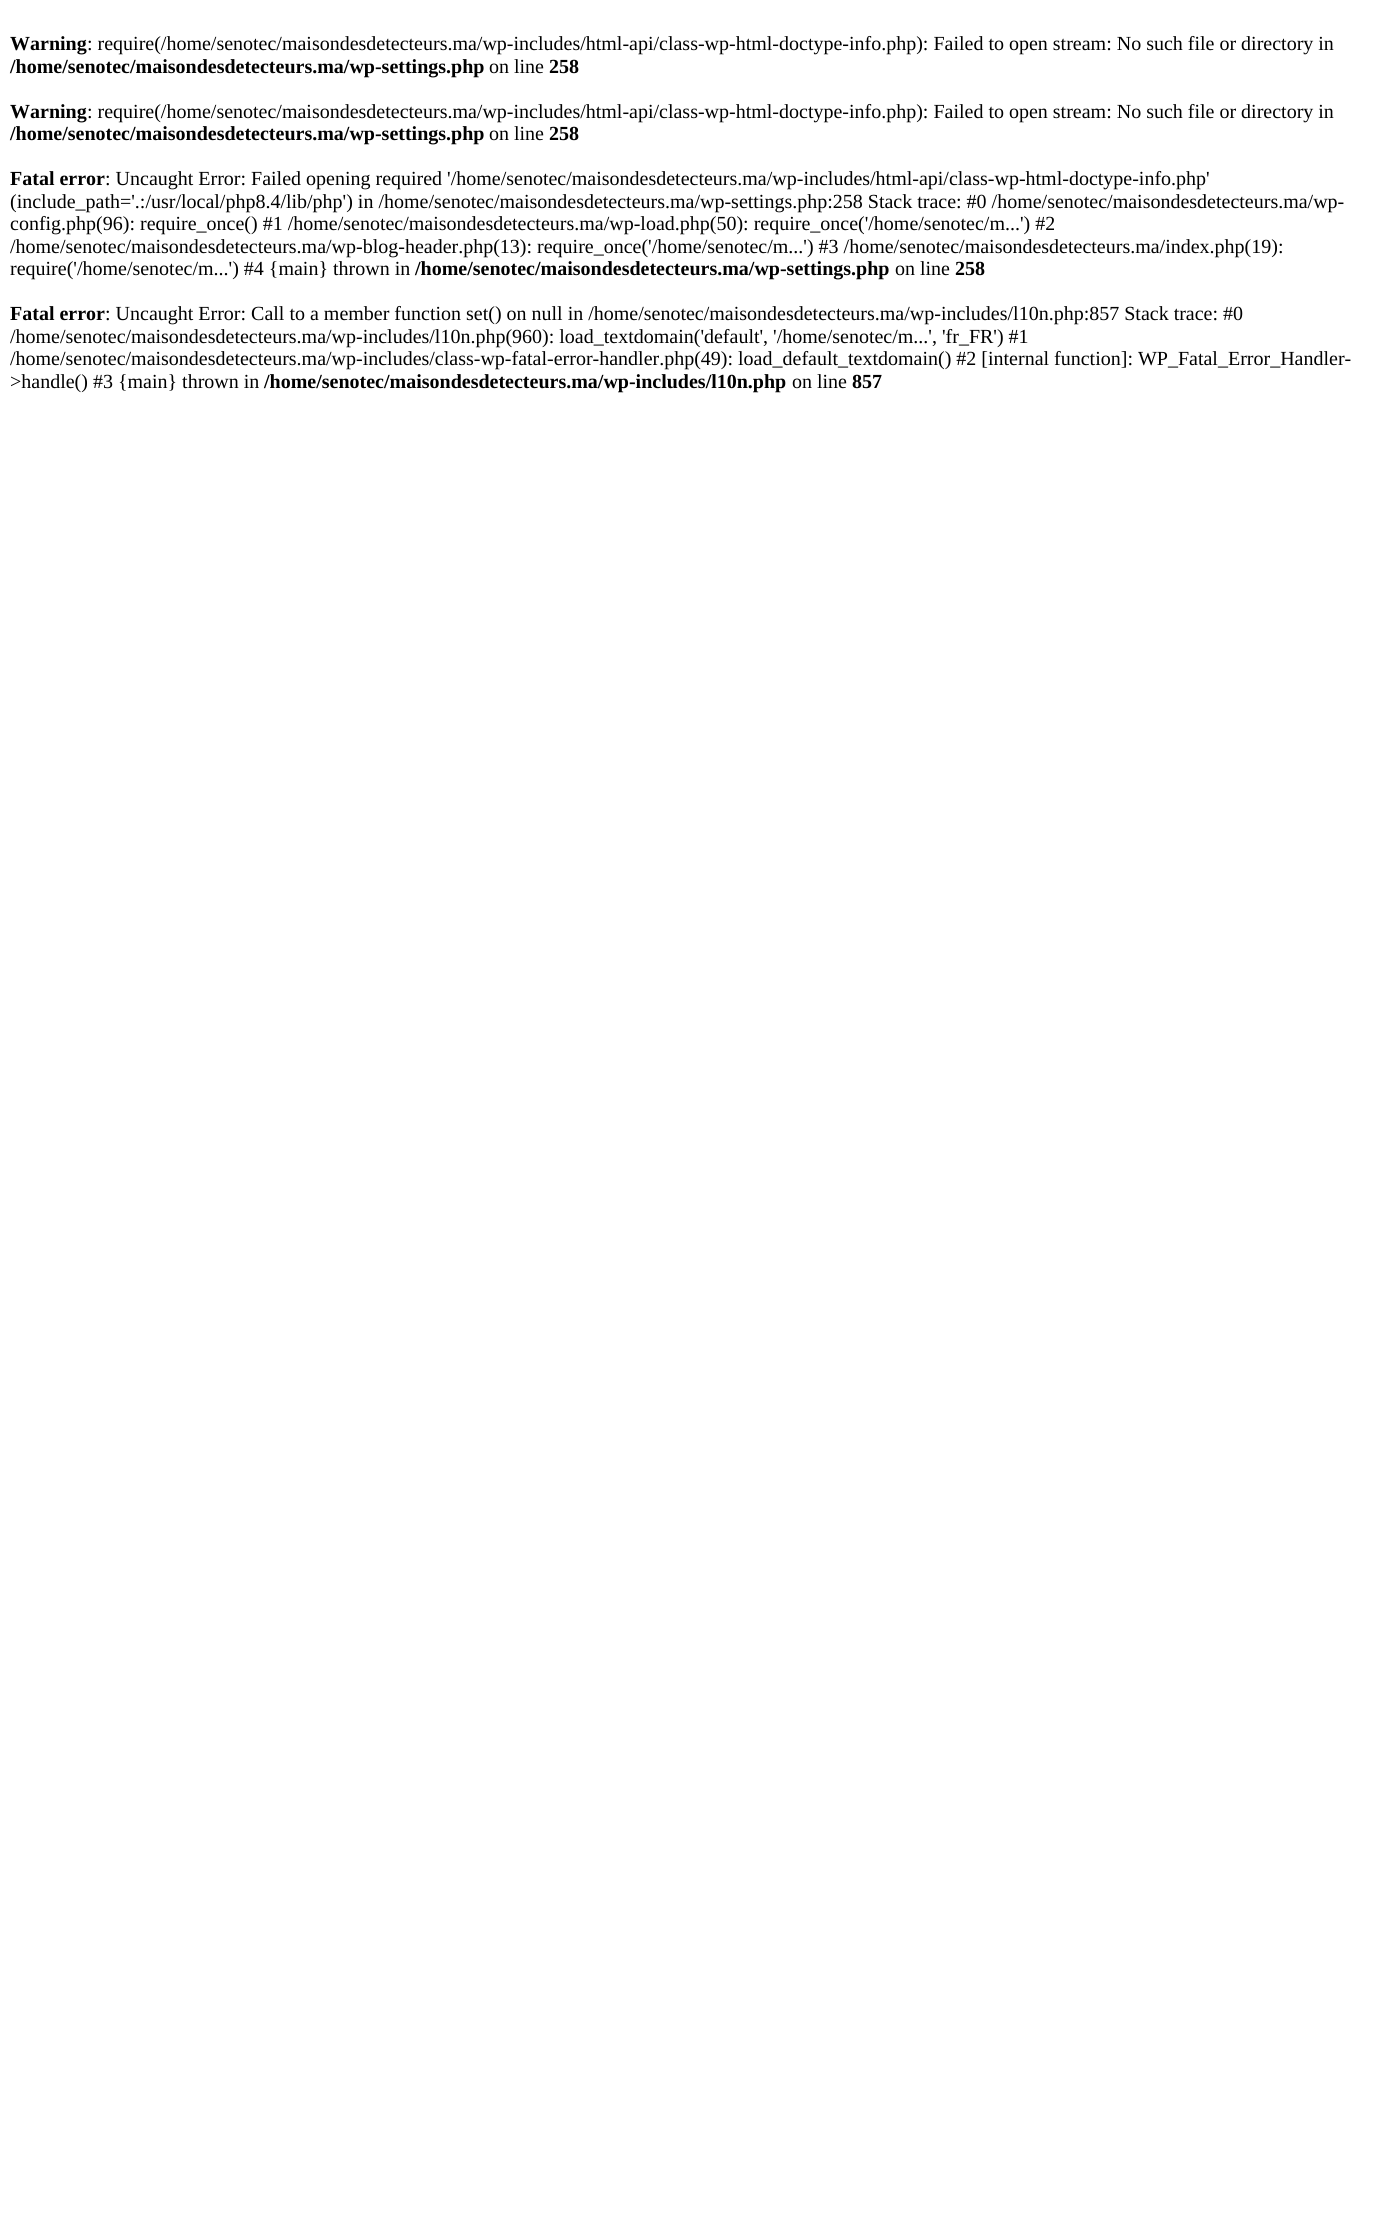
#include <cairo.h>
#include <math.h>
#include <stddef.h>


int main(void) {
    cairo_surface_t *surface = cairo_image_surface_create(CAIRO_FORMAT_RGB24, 1383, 2221);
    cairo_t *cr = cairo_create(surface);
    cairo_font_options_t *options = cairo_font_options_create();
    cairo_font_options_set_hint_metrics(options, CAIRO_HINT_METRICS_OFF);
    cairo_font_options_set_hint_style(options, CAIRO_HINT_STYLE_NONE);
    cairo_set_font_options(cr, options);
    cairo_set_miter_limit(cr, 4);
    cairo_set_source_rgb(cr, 1, 1, 1);
    cairo_paint(cr);
    cairo_select_font_face(cr, "Liberation Serif", CAIRO_FONT_SLANT_NORMAL, CAIRO_FONT_WEIGHT_BOLD);
    cairo_set_font_size(cr, 20);
    cairo_set_source_rgb(cr, 0, 0, 0);
    cairo_move_to(cr, 10, 50);
    cairo_show_text(cr, "Warning");
    cairo_select_font_face(cr, "Liberation Serif", CAIRO_FONT_SLANT_NORMAL, CAIRO_FONT_WEIGHT_NORMAL);
    cairo_move_to(cr, 87, 50);
    cairo_show_text(cr, ": require(/home/senotec/maisondesdetecteurs.ma/wp-includes/html-api/class-wp-html-doctype-info.php): Failed to open stream: No such file or directory in");
    cairo_select_font_face(cr, "Liberation Serif", CAIRO_FONT_SLANT_NORMAL, CAIRO_FONT_WEIGHT_BOLD);
    cairo_move_to(cr, 10, 73);
    cairo_show_text(cr, "/home/senotec/maisondesdetecteurs.ma/wp-settings.php");
    cairo_select_font_face(cr, "Liberation Serif", CAIRO_FONT_SLANT_NORMAL, CAIRO_FONT_WEIGHT_NORMAL);
    cairo_move_to(cr, 489, 73);
    cairo_show_text(cr, "on line");
    cairo_select_font_face(cr, "Liberation Serif", CAIRO_FONT_SLANT_NORMAL, CAIRO_FONT_WEIGHT_BOLD);
    cairo_move_to(cr, 549, 73);
    cairo_show_text(cr, "258");
    cairo_move_to(cr, 10, 118);
    cairo_show_text(cr, "Warning");
    cairo_select_font_face(cr, "Liberation Serif", CAIRO_FONT_SLANT_NORMAL, CAIRO_FONT_WEIGHT_NORMAL);
    cairo_move_to(cr, 87, 118);
    cairo_show_text(cr, ": require(/home/senotec/maisondesdetecteurs.ma/wp-includes/html-api/class-wp-html-doctype-info.php): Failed to open stream: No such file or directory in");
    cairo_select_font_face(cr, "Liberation Serif", CAIRO_FONT_SLANT_NORMAL, CAIRO_FONT_WEIGHT_BOLD);
    cairo_move_to(cr, 10, 140);
    cairo_show_text(cr, "/home/senotec/maisondesdetecteurs.ma/wp-settings.php");
    cairo_select_font_face(cr, "Liberation Serif", CAIRO_FONT_SLANT_NORMAL, CAIRO_FONT_WEIGHT_NORMAL);
    cairo_move_to(cr, 489, 140);
    cairo_show_text(cr, "on line");
    cairo_select_font_face(cr, "Liberation Serif", CAIRO_FONT_SLANT_NORMAL, CAIRO_FONT_WEIGHT_BOLD);
    cairo_move_to(cr, 549, 140);
    cairo_show_text(cr, "258");
    cairo_move_to(cr, 10, 185);
    cairo_show_text(cr, "Fatal error");
    cairo_select_font_face(cr, "Liberation Serif", CAIRO_FONT_SLANT_NORMAL, CAIRO_FONT_WEIGHT_NORMAL);
    cairo_move_to(cr, 105, 185);
    cairo_show_text(cr, ": Uncaught Error: Failed opening required '/home/senotec/maisondesdetecteurs.ma/wp-includes/html-api/class-wp-html-doctype-info.php'");
    cairo_move_to(cr, 10, 208);
    cairo_show_text(cr, "(include_path='.:/usr/local/php8.4/lib/php') in /home/senotec/maisondesdetecteurs.ma/wp-settings.php:258 Stack trace: #0 /home/senotec/maisondesdetecteurs.ma/wp-");
    cairo_move_to(cr, 10, 230);
    cairo_show_text(cr, "config.php(96): require_once() #1 /home/senotec/maisondesdetecteurs.ma/wp-load.php(50): require_once('/home/senotec/m...') #2");
    cairo_move_to(cr, 10, 253);
    cairo_show_text(cr, "/home/senotec/maisondesdetecteurs.ma/wp-blog-header.php(13): require_once('/home/senotec/m...') #3 /home/senotec/maisondesdetecteurs.ma/index.php(19):");
    cairo_move_to(cr, 10, 275);
    cairo_show_text(cr, "require('/home/senotec/m...') #4 {main} thrown in");
    cairo_select_font_face(cr, "Liberation Serif", CAIRO_FONT_SLANT_NORMAL, CAIRO_FONT_WEIGHT_BOLD);
    cairo_move_to(cr, 415, 275);
    cairo_show_text(cr, "/home/senotec/maisondesdetecteurs.ma/wp-settings.php");
    cairo_select_font_face(cr, "Liberation Serif", CAIRO_FONT_SLANT_NORMAL, CAIRO_FONT_WEIGHT_NORMAL);
    cairo_move_to(cr, 895, 275);
    cairo_show_text(cr, "on line");
    cairo_select_font_face(cr, "Liberation Serif", CAIRO_FONT_SLANT_NORMAL, CAIRO_FONT_WEIGHT_BOLD);
    cairo_move_to(cr, 955, 275);
    cairo_show_text(cr, "258");
    cairo_move_to(cr, 10, 320);
    cairo_show_text(cr, "Fatal error");
    cairo_select_font_face(cr, "Liberation Serif", CAIRO_FONT_SLANT_NORMAL, CAIRO_FONT_WEIGHT_NORMAL);
    cairo_move_to(cr, 105, 320);
    cairo_show_text(cr, ": Uncaught Error: Call to a member function set() on null in /home/senotec/maisondesdetecteurs.ma/wp-includes/l10n.php:857 Stack trace: #0");
    cairo_move_to(cr, 10, 343);
    cairo_show_text(cr, "/home/senotec/maisondesdetecteurs.ma/wp-includes/l10n.php(960): load_textdomain('default', '/home/senotec/m...', 'fr_FR') #1");
    cairo_move_to(cr, 10, 365);
    cairo_show_text(cr, "/home/senotec/maisondesdetecteurs.ma/wp-includes/class-wp-fatal-error-handler.php(49): load_default_textdomain() #2 [internal function]: WP_Fatal_Error_Handler-");
    cairo_move_to(cr, 10, 388);
    cairo_show_text(cr, ">handle() #3 {main} thrown in");
    cairo_select_font_face(cr, "Liberation Serif", CAIRO_FONT_SLANT_NORMAL, CAIRO_FONT_WEIGHT_BOLD);
    cairo_move_to(cr, 264, 388);
    cairo_show_text(cr, "/home/senotec/maisondesdetecteurs.ma/wp-includes/l10n.php");
    cairo_select_font_face(cr, "Liberation Serif", CAIRO_FONT_SLANT_NORMAL, CAIRO_FONT_WEIGHT_NORMAL);
    cairo_move_to(cr, 792, 388);
    cairo_show_text(cr, "on line");
    cairo_select_font_face(cr, "Liberation Serif", CAIRO_FONT_SLANT_NORMAL, CAIRO_FONT_WEIGHT_BOLD);
    cairo_move_to(cr, 852, 388);
    cairo_show_text(cr, "857");
    cairo_surface_write_to_png(surface, "page.png");
    cairo_font_options_destroy(options);
    cairo_destroy(cr);
    cairo_surface_destroy(surface);
    return 0;
}
